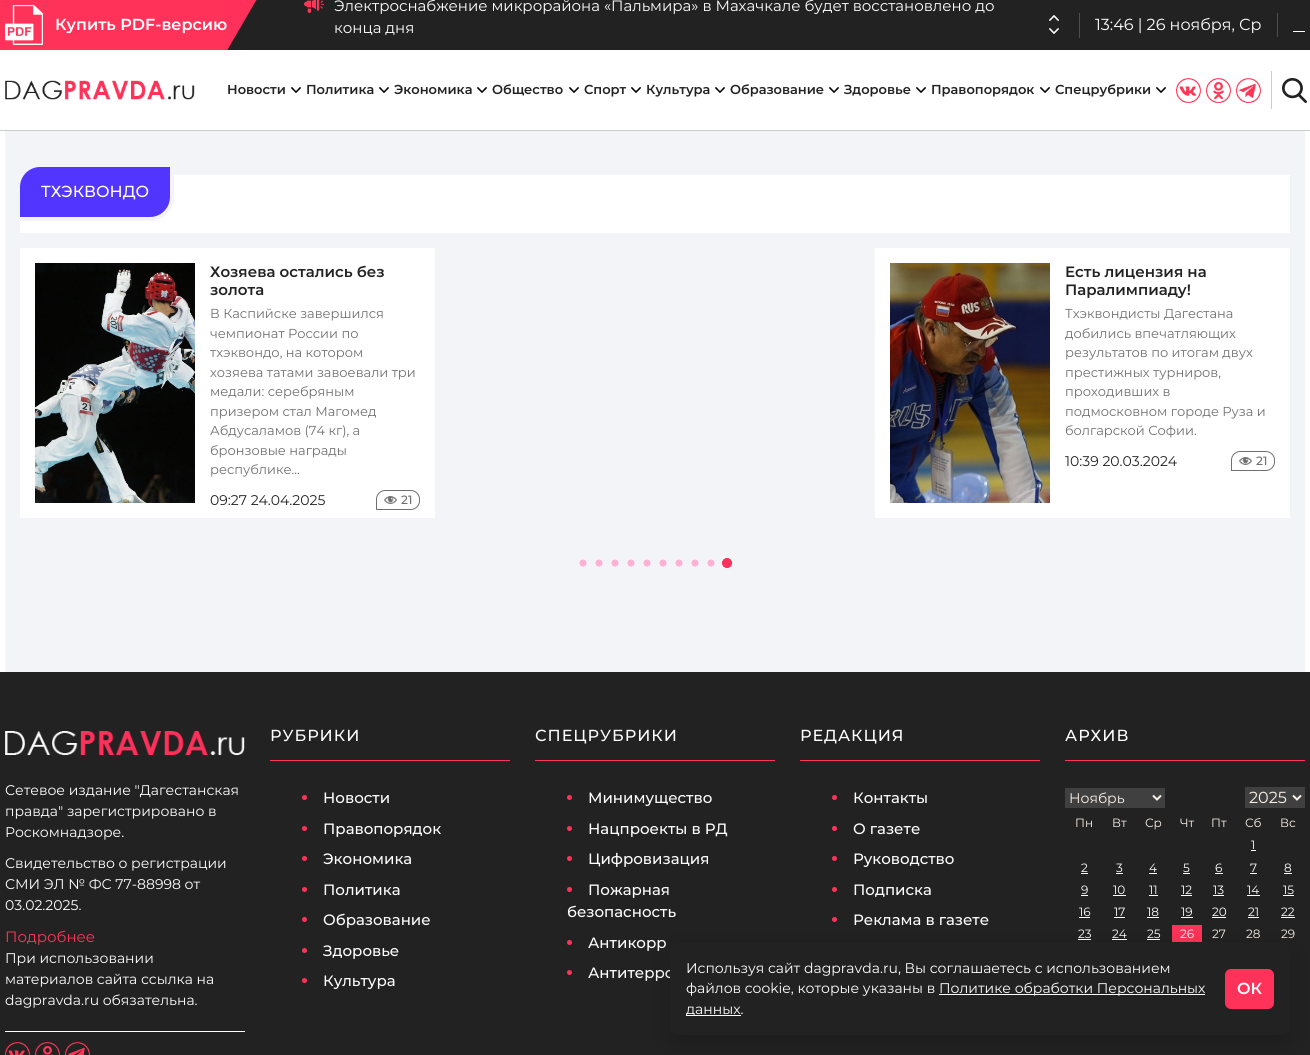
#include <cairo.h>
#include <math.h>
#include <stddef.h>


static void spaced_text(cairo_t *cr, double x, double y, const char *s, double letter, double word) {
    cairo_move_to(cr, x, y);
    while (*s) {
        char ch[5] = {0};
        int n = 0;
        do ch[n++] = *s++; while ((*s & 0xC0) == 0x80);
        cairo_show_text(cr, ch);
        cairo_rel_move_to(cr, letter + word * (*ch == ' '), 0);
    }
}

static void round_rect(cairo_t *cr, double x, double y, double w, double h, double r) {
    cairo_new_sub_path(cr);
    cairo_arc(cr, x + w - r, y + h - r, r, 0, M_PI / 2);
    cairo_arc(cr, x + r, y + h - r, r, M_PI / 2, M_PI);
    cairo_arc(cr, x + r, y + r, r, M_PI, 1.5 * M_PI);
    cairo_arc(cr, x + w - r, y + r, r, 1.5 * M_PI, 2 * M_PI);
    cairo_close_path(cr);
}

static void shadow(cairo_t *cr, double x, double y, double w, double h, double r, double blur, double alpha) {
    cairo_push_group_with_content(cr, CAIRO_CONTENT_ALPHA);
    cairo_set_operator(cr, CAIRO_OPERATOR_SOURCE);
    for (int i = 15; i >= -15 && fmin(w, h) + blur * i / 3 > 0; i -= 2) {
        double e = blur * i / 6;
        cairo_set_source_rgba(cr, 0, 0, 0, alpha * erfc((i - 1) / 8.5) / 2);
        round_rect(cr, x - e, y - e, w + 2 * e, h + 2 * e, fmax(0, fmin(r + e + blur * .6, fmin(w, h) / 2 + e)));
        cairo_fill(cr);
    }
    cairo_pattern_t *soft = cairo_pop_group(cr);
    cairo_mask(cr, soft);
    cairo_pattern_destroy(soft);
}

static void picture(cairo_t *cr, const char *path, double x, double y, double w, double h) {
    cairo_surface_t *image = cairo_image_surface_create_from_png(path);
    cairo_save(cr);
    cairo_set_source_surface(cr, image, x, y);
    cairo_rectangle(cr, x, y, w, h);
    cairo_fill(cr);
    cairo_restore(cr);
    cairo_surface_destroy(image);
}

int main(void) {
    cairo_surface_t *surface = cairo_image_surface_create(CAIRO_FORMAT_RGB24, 1310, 1055);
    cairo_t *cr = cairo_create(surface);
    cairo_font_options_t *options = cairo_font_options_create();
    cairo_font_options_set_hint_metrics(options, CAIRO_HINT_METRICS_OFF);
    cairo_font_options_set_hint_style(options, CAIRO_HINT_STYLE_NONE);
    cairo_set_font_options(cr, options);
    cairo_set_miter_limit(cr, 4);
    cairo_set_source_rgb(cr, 1, 1, 1);
    cairo_paint(cr);
    picture(cr, "img1.png", 0, 0, 1310, 50);
    cairo_set_source_rgb(cr, 0.133, 0.133, 0.133);
    cairo_rectangle(cr, 227, 0, 428, 50);
    cairo_fill(cr);
    picture(cr, "img2.png", 5, 5, 38, 40);
    cairo_select_font_face(cr, "Montserrat SemiBold", CAIRO_FONT_SLANT_NORMAL, CAIRO_FONT_WEIGHT_NORMAL);
    cairo_set_font_size(cr, 16);
    cairo_set_source_rgb(cr, 1, 1, 1);
    cairo_move_to(cr, 55, 30);
    cairo_show_text(cr, "Купить PDF-версию");
    picture(cr, "img3.png", 227, 0, 30, 50);
    cairo_set_source_rgb(cr, 0.306, 0.306, 0.306);
    cairo_rectangle(cr, 1079, 13, 1, 25);
    cairo_fill(cr);
    picture(cr, "img4.png", 304, 0, 20, 13);
    cairo_select_font_face(cr, "Montserrat", CAIRO_FONT_SLANT_NORMAL, CAIRO_FONT_WEIGHT_NORMAL);
    cairo_set_font_size(cr, 15);
    cairo_set_source_rgb(cr, 1, 1, 1);
    cairo_move_to(cr, 334, 11);
    cairo_show_text(cr, "Электроснабжение микрорайона «Пальмира» в Махачкале будет восстановлено до");
    cairo_move_to(cr, 334, 33);
    cairo_show_text(cr, "конца дня");
    picture(cr, "img5.png", 1049, 15, 10, 6);
    picture(cr, "img6.png", 1049, 28, 10, 6);
    cairo_set_source_rgb(cr, 0.306, 0.306, 0.306);
    cairo_rectangle(cr, 1277, 13, 1, 24);
    cairo_fill(cr);
    cairo_set_font_size(cr, 16);
    cairo_set_source_rgb(cr, 1, 1, 1);
    cairo_move_to(cr, 1095, 30);
    cairo_show_text(cr, "13:46 | 26 ноября, Ср");
    cairo_rectangle(cr, 1293, 31, 12, 1);
    cairo_fill(cr);
    cairo_set_source_rgb(cr, 0.8, 0.8, 0.8);
    cairo_rectangle(cr, 0, 130, 1310, 1);
    cairo_fill(cr);
    picture(cr, "img7.png", 5, 80, 190, 20);
    cairo_select_font_face(cr, "Montserrat SemiBold", CAIRO_FONT_SLANT_NORMAL, CAIRO_FONT_WEIGHT_NORMAL);
    cairo_set_font_size(cr, 13);
    cairo_set_source_rgb(cr, 0.133, 0.133, 0.133);
    cairo_move_to(cr, 227, 94);
    cairo_show_text(cr, "Новости");
    picture(cr, "img8.png", 291, 87, 10, 6);
    cairo_move_to(cr, 306, 94);
    cairo_show_text(cr, "Политика");
    picture(cr, "img8.png", 379, 87, 10, 6);
    cairo_move_to(cr, 394, 94);
    cairo_show_text(cr, "Экономика");
    picture(cr, "img8.png", 477, 87, 10, 6);
    cairo_move_to(cr, 492, 94);
    cairo_show_text(cr, "Общество");
    picture(cr, "img8.png", 569, 87, 10, 6);
    cairo_move_to(cr, 584, 94);
    cairo_show_text(cr, "Спорт");
    picture(cr, "img8.png", 631, 87, 10, 6);
    cairo_move_to(cr, 646, 94);
    cairo_show_text(cr, "Культура");
    picture(cr, "img8.png", 715, 87, 10, 6);
    cairo_move_to(cr, 730, 94);
    cairo_show_text(cr, "Образование");
    picture(cr, "img8.png", 829, 87, 10, 6);
    cairo_move_to(cr, 844, 94);
    cairo_show_text(cr, "Здоровье");
    picture(cr, "img8.png", 916, 87, 10, 6);
    cairo_move_to(cr, 931, 94);
    cairo_show_text(cr, "Правопорядок");
    picture(cr, "img8.png", 1040, 87, 10, 6);
    cairo_move_to(cr, 1055, 94);
    cairo_show_text(cr, "Спецрубрики");
    picture(cr, "img8.png", 1156, 87, 10, 6);
    cairo_set_source_rgb(cr, 0.8, 0.8, 0.8);
    cairo_rectangle(cr, 1271, 71, 1, 38);
    cairo_fill(cr);
    picture(cr, "img9.png", 1176, 78, 25, 25);
    picture(cr, "img10.png", 1206, 78, 25, 25);
    picture(cr, "img11.png", 1236, 78, 25, 25);
    picture(cr, "img12.png", 1282, 78, 25, 25);
    cairo_set_source_rgb(cr, 0.953, 0.957, 0.969);
    cairo_rectangle(cr, 5, 131, 1300, 541);
    cairo_fill(cr);
    cairo_set_source_rgb(cr, 1, 1, 1);
    cairo_rectangle(cr, 20, 175, 1270, 58);
    cairo_fill(cr);
    cairo_new_path(cr);
    cairo_move_to(cr, 40, 165);
    cairo_line_to(cr, 172, 165);
    cairo_line_to(cr, 172, 197);
    cairo_curve_to(cr, 172, 209, 162, 219, 150, 219);
    cairo_line_to(cr, 18, 219);
    cairo_line_to(cr, 18, 187);
    cairo_curve_to(cr, 18, 175, 28, 165, 40, 165);
    cairo_close_path(cr);
    cairo_set_source_rgb(cr, 0.953, 0.957, 0.969);
    cairo_set_line_width(cr, 4);
    cairo_stroke(cr);
    cairo_set_source_rgb(cr, 0.322, 0.212, 1);
    cairo_new_path(cr);
    cairo_move_to(cr, 40, 167);
    cairo_line_to(cr, 170, 167);
    cairo_line_to(cr, 170, 197);
    cairo_curve_to(cr, 170, 208, 161, 217, 150, 217);
    cairo_line_to(cr, 20, 217);
    cairo_line_to(cr, 20, 187);
    cairo_curve_to(cr, 20, 176, 29, 167, 40, 167);
    cairo_close_path(cr);
    cairo_fill(cr);
    cairo_select_font_face(cr, "Montserrat Medium", CAIRO_FONT_SLANT_NORMAL, CAIRO_FONT_WEIGHT_NORMAL);
    cairo_set_font_size(cr, 16);
    cairo_set_source_rgb(cr, 1, 1, 1);
    cairo_move_to(cr, 41, 197);
    cairo_show_text(cr, "ТХЭКВОНДО");
    cairo_rectangle(cr, 20, 248, 415, 270);
    cairo_fill(cr);
    picture(cr, "img13.png", 35, 263, 160, 240);
    cairo_select_font_face(cr, "Montserrat SemiBold", CAIRO_FONT_SLANT_NORMAL, CAIRO_FONT_WEIGHT_NORMAL);
    cairo_set_font_size(cr, 15);
    cairo_set_source_rgb(cr, 0.133, 0.133, 0.133);
    cairo_move_to(cr, 210, 277);
    cairo_show_text(cr, "Хозяева остались без");
    cairo_move_to(cr, 210, 295);
    cairo_show_text(cr, "золота");
    cairo_select_font_face(cr, "Montserrat", CAIRO_FONT_SLANT_NORMAL, CAIRO_FONT_WEIGHT_NORMAL);
    cairo_set_font_size(cr, 13);
    cairo_set_source_rgb(cr, 0.439, 0.439, 0.439);
    cairo_move_to(cr, 210, 318);
    cairo_show_text(cr, "В Каспийске завершился");
    cairo_move_to(cr, 210, 338);
    cairo_show_text(cr, "чемпионат России по");
    cairo_move_to(cr, 210, 357);
    cairo_show_text(cr, "тхэквондо, на котором");
    cairo_move_to(cr, 210, 377);
    cairo_show_text(cr, "хозяева татами завоевали три");
    cairo_move_to(cr, 210, 396);
    cairo_show_text(cr, "медали: серебряным");
    cairo_move_to(cr, 210, 416);
    cairo_show_text(cr, "призером стал Магомед");
    cairo_move_to(cr, 210, 435);
    cairo_show_text(cr, "Абдусаламов (74 кг), а");
    cairo_move_to(cr, 210, 455);
    cairo_show_text(cr, "бронзовые награды");
    cairo_move_to(cr, 210, 474);
    cairo_show_text(cr, "республике...");
    cairo_set_font_size(cr, 14);
    cairo_set_source_rgb(cr, 0.133, 0.133, 0.133);
    cairo_move_to(cr, 210, 505);
    cairo_show_text(cr, "09:27 24.04.2025");
    cairo_new_path(cr);
    cairo_move_to(cr, 385, 490.5);
    cairo_line_to(cr, 411, 490.5);
    cairo_curve_to(cr, 415.5, 490.5, 419.5, 494.5, 419.5, 499);
    cairo_line_to(cr, 419.5, 501);
    cairo_curve_to(cr, 419.5, 505.5, 415.5, 509.5, 411, 509.5);
    cairo_line_to(cr, 376.5, 509.5);
    cairo_line_to(cr, 376.5, 499);
    cairo_curve_to(cr, 376.5, 494.5, 380.5, 490.5, 385, 490.5);
    cairo_close_path(cr);
    cairo_set_source_rgb(cr, 0.439, 0.439, 0.439);
    cairo_set_line_width(cr, 1);
    cairo_stroke(cr);
    picture(cr, "img14.png", 384, 496, 13, 8);
    cairo_select_font_face(cr, "Montserrat Medium", CAIRO_FONT_SLANT_NORMAL, CAIRO_FONT_WEIGHT_NORMAL);
    cairo_set_font_size(cr, 12);
    cairo_move_to(cr, 401, 504);
    cairo_show_text(cr, "21");
    cairo_set_source_rgb(cr, 1, 1, 1);
    cairo_rectangle(cr, 875, 248, 415, 270);
    cairo_fill(cr);
    picture(cr, "img15.png", 890, 263, 160, 240);
    cairo_select_font_face(cr, "Montserrat SemiBold", CAIRO_FONT_SLANT_NORMAL, CAIRO_FONT_WEIGHT_NORMAL);
    cairo_set_font_size(cr, 15);
    cairo_set_source_rgb(cr, 0.133, 0.133, 0.133);
    cairo_move_to(cr, 1065, 277);
    cairo_show_text(cr, "Есть лицензия на");
    cairo_move_to(cr, 1065, 295);
    cairo_show_text(cr, "Паралимпиаду!");
    cairo_select_font_face(cr, "Montserrat", CAIRO_FONT_SLANT_NORMAL, CAIRO_FONT_WEIGHT_NORMAL);
    cairo_set_font_size(cr, 13);
    cairo_set_source_rgb(cr, 0.439, 0.439, 0.439);
    cairo_move_to(cr, 1065, 318);
    cairo_show_text(cr, "Тхэквондисты Дагестана");
    cairo_move_to(cr, 1065, 338);
    cairo_show_text(cr, "добились впечатляющих");
    cairo_move_to(cr, 1065, 357);
    cairo_show_text(cr, "результатов по итогам двух");
    cairo_move_to(cr, 1065, 377);
    cairo_show_text(cr, "престижных турниров,");
    cairo_move_to(cr, 1065, 396);
    cairo_show_text(cr, "проходивших в");
    cairo_move_to(cr, 1065, 416);
    cairo_show_text(cr, "подмосковном городе Руза и");
    cairo_move_to(cr, 1065, 435);
    cairo_show_text(cr, "болгарской Софии.");
    cairo_set_font_size(cr, 14);
    cairo_set_source_rgb(cr, 0.133, 0.133, 0.133);
    cairo_move_to(cr, 1065, 466);
    cairo_show_text(cr, "10:39 20.03.2024");
    cairo_new_path(cr);
    cairo_move_to(cr, 1240, 451.5);
    cairo_line_to(cr, 1266, 451.5);
    cairo_curve_to(cr, 1270.5, 451.5, 1274.5, 455.5, 1274.5, 460);
    cairo_line_to(cr, 1274.5, 462);
    cairo_curve_to(cr, 1274.5, 466.5, 1270.5, 470.5, 1266, 470.5);
    cairo_line_to(cr, 1231.5, 470.5);
    cairo_line_to(cr, 1231.5, 460);
    cairo_curve_to(cr, 1231.5, 455.5, 1235.5, 451.5, 1240, 451.5);
    cairo_close_path(cr);
    cairo_set_source_rgb(cr, 0.439, 0.439, 0.439);
    cairo_stroke(cr);
    picture(cr, "img14.png", 1239, 457, 13, 8);
    cairo_select_font_face(cr, "Montserrat Medium", CAIRO_FONT_SLANT_NORMAL, CAIRO_FONT_WEIGHT_NORMAL);
    cairo_set_font_size(cr, 12);
    cairo_move_to(cr, 1256, 465);
    cairo_show_text(cr, "21");
    picture(cr, "img16.png", 579, 558, 153, 10);
    cairo_set_source_rgb(cr, 0.133, 0.133, 0.133);
    cairo_rectangle(cr, 0, 672, 1310, 383);
    cairo_fill(cr);
    picture(cr, "img17.png", 5, 731, 240, 24);
    cairo_select_font_face(cr, "Montserrat", CAIRO_FONT_SLANT_NORMAL, CAIRO_FONT_WEIGHT_NORMAL);
    cairo_set_font_size(cr, 14);
    cairo_set_source_rgb(cr, 1, 1, 1);
    cairo_move_to(cr, 5, 795);
    cairo_show_text(cr, "Сетевое издание \"Дагестанская");
    cairo_move_to(cr, 5, 816);
    cairo_show_text(cr, "правда\" зарегистрировано в");
    cairo_move_to(cr, 5, 837);
    cairo_show_text(cr, "Роскомнадзоре.");
    cairo_move_to(cr, 5, 868);
    cairo_show_text(cr, "Свидетельство о регистрации");
    cairo_move_to(cr, 5, 889);
    cairo_show_text(cr, "СМИ ЭЛ № ФС 77-88998 от");
    cairo_move_to(cr, 5, 910);
    cairo_show_text(cr, "03.02.2025.");
    cairo_set_font_size(cr, 15);
    cairo_set_source_rgb(cr, 1, 0.2, 0.349);
    cairo_move_to(cr, 5, 942);
    cairo_show_text(cr, "Подробнее");
    cairo_set_font_size(cr, 14);
    cairo_set_source_rgb(cr, 1, 1, 1);
    cairo_move_to(cr, 5, 963);
    cairo_show_text(cr, "При использовании");
    cairo_move_to(cr, 5, 984);
    cairo_show_text(cr, "материалов сайта ссылка на");
    cairo_move_to(cr, 5, 1005);
    cairo_show_text(cr, "dagpravda.ru обязательна.");
    cairo_rectangle(cr, 5, 1031, 240, 1);
    cairo_fill(cr);
    picture(cr, "img18.png", 5, 1042, 25, 13);
    picture(cr, "img19.png", 35, 1042, 25, 13);
    picture(cr, "img20.png", 65, 1042, 25, 13);
    cairo_select_font_face(cr, "Montserrat Medium", CAIRO_FONT_SLANT_NORMAL, CAIRO_FONT_WEIGHT_NORMAL);
    cairo_set_font_size(cr, 16);
    spaced_text(cr, 270, 741, "РУБРИКИ", 1, 0);
    cairo_set_source_rgb(cr, 1, 0.212, 0.341);
    cairo_rectangle(cr, 270, 760, 240, 1);
    cairo_fill(cr);
    cairo_set_source_rgb(cr, 1, 0.2, 0.349);
    cairo_arc(cr, 304.5, 797.5, 2.5, 0, 2 * M_PI);
    cairo_fill(cr);
    cairo_set_font_size(cr, 15);
    cairo_set_source_rgb(cr, 1, 1, 1);
    cairo_move_to(cr, 323, 803);
    cairo_show_text(cr, "Новости");
    cairo_set_source_rgb(cr, 1, 0.2, 0.349);
    cairo_new_path(cr);
    cairo_arc(cr, 304.5, 828.5, 2.5, 0, 2 * M_PI);
    cairo_fill(cr);
    cairo_set_source_rgb(cr, 1, 1, 1);
    cairo_move_to(cr, 323, 834);
    cairo_show_text(cr, "Правопорядок");
    cairo_set_source_rgb(cr, 1, 0.2, 0.349);
    cairo_new_path(cr);
    cairo_arc(cr, 304.5, 858.5, 2.5, 0, 2 * M_PI);
    cairo_fill(cr);
    cairo_set_source_rgb(cr, 1, 1, 1);
    cairo_move_to(cr, 323, 864);
    cairo_show_text(cr, "Экономика");
    cairo_set_source_rgb(cr, 1, 0.2, 0.349);
    cairo_new_path(cr);
    cairo_arc(cr, 304.5, 889.5, 2.5, 0, 2 * M_PI);
    cairo_fill(cr);
    cairo_set_source_rgb(cr, 1, 1, 1);
    cairo_move_to(cr, 323, 895);
    cairo_show_text(cr, "Политика");
    cairo_set_source_rgb(cr, 1, 0.2, 0.349);
    cairo_new_path(cr);
    cairo_arc(cr, 304.5, 919.5, 2.5, 0, 2 * M_PI);
    cairo_fill(cr);
    cairo_set_source_rgb(cr, 1, 1, 1);
    cairo_move_to(cr, 323, 925);
    cairo_show_text(cr, "Образование");
    cairo_set_source_rgb(cr, 1, 0.2, 0.349);
    cairo_new_path(cr);
    cairo_arc(cr, 304.5, 950.5, 2.5, 0, 2 * M_PI);
    cairo_fill(cr);
    cairo_set_source_rgb(cr, 1, 1, 1);
    cairo_move_to(cr, 323, 956);
    cairo_show_text(cr, "Здоровье");
    cairo_set_source_rgb(cr, 1, 0.2, 0.349);
    cairo_new_path(cr);
    cairo_arc(cr, 304.5, 980.5, 2.5, 0, 2 * M_PI);
    cairo_fill(cr);
    cairo_set_source_rgb(cr, 1, 1, 1);
    cairo_move_to(cr, 323, 986);
    cairo_show_text(cr, "Культура");
    cairo_set_font_size(cr, 16);
    spaced_text(cr, 535, 741, "СПЕЦРУБРИКИ", 1, 0);
    cairo_set_source_rgb(cr, 1, 0.212, 0.341);
    cairo_rectangle(cr, 535, 760, 240, 1);
    cairo_fill(cr);
    cairo_set_source_rgb(cr, 1, 0.2, 0.349);
    cairo_arc(cr, 569.5, 797.5, 2.5, 0, 2 * M_PI);
    cairo_fill(cr);
    cairo_set_font_size(cr, 15);
    cairo_set_source_rgb(cr, 1, 1, 1);
    cairo_move_to(cr, 588, 803);
    cairo_show_text(cr, "Минимущество");
    cairo_set_source_rgb(cr, 1, 0.2, 0.349);
    cairo_new_path(cr);
    cairo_arc(cr, 569.5, 828.5, 2.5, 0, 2 * M_PI);
    cairo_fill(cr);
    cairo_set_source_rgb(cr, 1, 1, 1);
    cairo_move_to(cr, 588, 834);
    cairo_show_text(cr, "Нацпроекты в РД");
    cairo_set_source_rgb(cr, 1, 0.2, 0.349);
    cairo_new_path(cr);
    cairo_arc(cr, 569.5, 858.5, 2.5, 0, 2 * M_PI);
    cairo_fill(cr);
    cairo_set_source_rgb(cr, 1, 1, 1);
    cairo_move_to(cr, 588, 864);
    cairo_show_text(cr, "Цифровизация");
    cairo_set_source_rgb(cr, 1, 0.2, 0.349);
    cairo_new_path(cr);
    cairo_arc(cr, 569.5, 889.5, 2.5, 0, 2 * M_PI);
    cairo_fill(cr);
    cairo_set_source_rgb(cr, 1, 1, 1);
    cairo_move_to(cr, 588, 895);
    cairo_show_text(cr, "Пожарная");
    cairo_move_to(cr, 567, 917);
    cairo_show_text(cr, "безопасность");
    cairo_set_source_rgb(cr, 1, 0.2, 0.349);
    cairo_new_path(cr);
    cairo_arc(cr, 569.5, 942.5, 2.5, 0, 2 * M_PI);
    cairo_fill(cr);
    cairo_set_source_rgb(cr, 1, 1, 1);
    cairo_move_to(cr, 588, 948);
    cairo_show_text(cr, "Антикорр");
    cairo_set_source_rgb(cr, 1, 0.2, 0.349);
    cairo_new_path(cr);
    cairo_arc(cr, 569.5, 972.5, 2.5, 0, 2 * M_PI);
    cairo_fill(cr);
    cairo_set_source_rgb(cr, 1, 1, 1);
    cairo_move_to(cr, 588, 978);
    cairo_show_text(cr, "Антитерро");
    cairo_set_font_size(cr, 16);
    spaced_text(cr, 800, 741, "РЕДАКЦИЯ", 1, 0);
    cairo_set_source_rgb(cr, 1, 0.212, 0.341);
    cairo_rectangle(cr, 800, 760, 240, 1);
    cairo_fill(cr);
    cairo_set_source_rgb(cr, 1, 0.2, 0.349);
    cairo_arc(cr, 834.5, 797.5, 2.5, 0, 2 * M_PI);
    cairo_fill(cr);
    cairo_set_font_size(cr, 15);
    cairo_set_source_rgb(cr, 1, 1, 1);
    cairo_move_to(cr, 853, 803);
    cairo_show_text(cr, "Контакты");
    cairo_set_source_rgb(cr, 1, 0.2, 0.349);
    cairo_new_path(cr);
    cairo_arc(cr, 834.5, 828.5, 2.5, 0, 2 * M_PI);
    cairo_fill(cr);
    cairo_set_source_rgb(cr, 1, 1, 1);
    cairo_move_to(cr, 853, 834);
    cairo_show_text(cr, "О газете");
    cairo_set_source_rgb(cr, 1, 0.2, 0.349);
    cairo_new_path(cr);
    cairo_arc(cr, 834.5, 858.5, 2.5, 0, 2 * M_PI);
    cairo_fill(cr);
    cairo_set_source_rgb(cr, 1, 1, 1);
    cairo_move_to(cr, 853, 864);
    cairo_show_text(cr, "Руководство");
    cairo_set_source_rgb(cr, 1, 0.2, 0.349);
    cairo_new_path(cr);
    cairo_arc(cr, 834.5, 889.5, 2.5, 0, 2 * M_PI);
    cairo_fill(cr);
    cairo_set_source_rgb(cr, 1, 1, 1);
    cairo_move_to(cr, 853, 895);
    cairo_show_text(cr, "Подписка");
    cairo_set_source_rgb(cr, 1, 0.2, 0.349);
    cairo_new_path(cr);
    cairo_arc(cr, 834.5, 919.5, 2.5, 0, 2 * M_PI);
    cairo_fill(cr);
    cairo_set_source_rgb(cr, 1, 1, 1);
    cairo_move_to(cr, 853, 925);
    cairo_show_text(cr, "Реклама в газете");
    cairo_set_font_size(cr, 16);
    spaced_text(cr, 1065, 741, "АРХИВ", 1, 0);
    cairo_set_source_rgb(cr, 1, 0.212, 0.341);
    cairo_rectangle(cr, 1065, 760, 240, 1);
    cairo_fill(cr);
    cairo_set_source_rgb(cr, 0.251, 0.251, 0.251);
    cairo_rectangle(cr, 1065, 788, 100, 20);
    cairo_fill(cr);
    cairo_new_path(cr);
    cairo_move_to(cr, 1153, 795.5);
    cairo_line_to(cr, 1157, 799.5);
    cairo_line_to(cr, 1161, 795.5);
    cairo_set_source_rgb(cr, 0.98, 0.945, 0.91);
    cairo_set_line_width(cr, 2);
    cairo_stroke(cr);
    cairo_select_font_face(cr, "Montserrat", CAIRO_FONT_SLANT_NORMAL, CAIRO_FONT_WEIGHT_NORMAL);
    cairo_set_font_size(cr, 14);
    cairo_move_to(cr, 1069, 803);
    cairo_show_text(cr, "Ноябрь");
    cairo_set_source_rgb(cr, 0.251, 0.251, 0.251);
    cairo_rectangle(cr, 1245, 787, 60, 21);
    cairo_fill(cr);
    cairo_new_path(cr);
    cairo_move_to(cr, 1293, 795.5);
    cairo_line_to(cr, 1297, 799.5);
    cairo_line_to(cr, 1301, 795.5);
    cairo_set_source_rgb(cr, 0.98, 0.945, 0.91);
    cairo_stroke(cr);
    cairo_set_font_size(cr, 16);
    cairo_move_to(cr, 1249, 803);
    cairo_show_text(cr, "2025");
    cairo_set_font_size(cr, 12);
    cairo_move_to(cr, 1075, 827);
    cairo_show_text(cr, "Пн");
    cairo_move_to(cr, 1112, 827);
    cairo_show_text(cr, "Вт");
    cairo_move_to(cr, 1145, 827);
    cairo_show_text(cr, "Ср");
    cairo_move_to(cr, 1180, 827);
    cairo_show_text(cr, "Чт");
    cairo_move_to(cr, 1211, 827);
    cairo_show_text(cr, "Пт");
    cairo_move_to(cr, 1245, 827);
    cairo_show_text(cr, "Сб");
    cairo_move_to(cr, 1280, 827);
    cairo_show_text(cr, "Вс");
    cairo_set_source_rgb(cr, 1, 1, 1);
    cairo_move_to(cr, 1251, 849);
    cairo_show_text(cr, "1");
    cairo_rectangle(cr, 1251, 850, 5, 1);
    cairo_fill(cr);
    cairo_move_to(cr, 1081, 872);
    cairo_show_text(cr, "2");
    cairo_rectangle(cr, 1081, 873, 7, 1);
    cairo_fill(cr);
    cairo_move_to(cr, 1116, 872);
    cairo_show_text(cr, "3");
    cairo_rectangle(cr, 1116, 873, 7, 1);
    cairo_fill(cr);
    cairo_move_to(cr, 1149, 872);
    cairo_show_text(cr, "4");
    cairo_rectangle(cr, 1149, 873, 8, 1);
    cairo_fill(cr);
    cairo_move_to(cr, 1183, 872);
    cairo_show_text(cr, "5");
    cairo_rectangle(cr, 1183, 873, 7, 1);
    cairo_fill(cr);
    cairo_move_to(cr, 1215, 872);
    cairo_show_text(cr, "6");
    cairo_rectangle(cr, 1215, 873, 8, 1);
    cairo_fill(cr);
    cairo_move_to(cr, 1250, 872);
    cairo_show_text(cr, "7");
    cairo_rectangle(cr, 1250, 873, 7, 1);
    cairo_fill(cr);
    cairo_move_to(cr, 1284, 872);
    cairo_show_text(cr, "8");
    cairo_rectangle(cr, 1284, 873, 8, 1);
    cairo_fill(cr);
    cairo_move_to(cr, 1081, 894);
    cairo_show_text(cr, "9");
    cairo_rectangle(cr, 1081, 895, 7, 1);
    cairo_fill(cr);
    cairo_move_to(cr, 1113, 894);
    cairo_show_text(cr, "10");
    cairo_rectangle(cr, 1113, 895, 13, 1);
    cairo_fill(cr);
    cairo_move_to(cr, 1149, 894);
    cairo_show_text(cr, "11");
    cairo_rectangle(cr, 1149, 895, 9, 1);
    cairo_fill(cr);
    cairo_move_to(cr, 1181, 894);
    cairo_show_text(cr, "12");
    cairo_rectangle(cr, 1181, 895, 11, 1);
    cairo_fill(cr);
    cairo_move_to(cr, 1213, 894);
    cairo_show_text(cr, "13");
    cairo_rectangle(cr, 1213, 895, 11, 1);
    cairo_fill(cr);
    cairo_move_to(cr, 1247, 894);
    cairo_show_text(cr, "14");
    cairo_rectangle(cr, 1247, 895, 13, 1);
    cairo_fill(cr);
    cairo_move_to(cr, 1283, 894);
    cairo_show_text(cr, "15");
    cairo_rectangle(cr, 1283, 895, 11, 1);
    cairo_fill(cr);
    cairo_move_to(cr, 1079, 916);
    cairo_show_text(cr, "16");
    cairo_rectangle(cr, 1079, 917, 11, 1);
    cairo_fill(cr);
    cairo_move_to(cr, 1114, 916);
    cairo_show_text(cr, "17");
    cairo_rectangle(cr, 1114, 917, 11, 1);
    cairo_fill(cr);
    cairo_move_to(cr, 1147, 916);
    cairo_show_text(cr, "18");
    cairo_rectangle(cr, 1147, 917, 12, 1);
    cairo_fill(cr);
    cairo_move_to(cr, 1181, 916);
    cairo_show_text(cr, "19");
    cairo_rectangle(cr, 1181, 917, 12, 1);
    cairo_fill(cr);
    cairo_move_to(cr, 1212, 916);
    cairo_show_text(cr, "20");
    cairo_rectangle(cr, 1212, 917, 14, 1);
    cairo_fill(cr);
    cairo_move_to(cr, 1248, 916);
    cairo_show_text(cr, "21");
    cairo_rectangle(cr, 1248, 917, 11, 1);
    cairo_fill(cr);
    cairo_move_to(cr, 1281, 916);
    cairo_show_text(cr, "22");
    cairo_rectangle(cr, 1281, 917, 14, 1);
    cairo_fill(cr);
    cairo_move_to(cr, 1078, 938);
    cairo_show_text(cr, "23");
    cairo_rectangle(cr, 1078, 939, 13, 1);
    cairo_fill(cr);
    cairo_move_to(cr, 1112, 938);
    cairo_show_text(cr, "24");
    cairo_rectangle(cr, 1112, 939, 15, 1);
    cairo_fill(cr);
    cairo_move_to(cr, 1147, 938);
    cairo_show_text(cr, "25");
    cairo_rectangle(cr, 1147, 939, 13, 1);
    cairo_fill(cr);
    cairo_set_source_rgb(cr, 1, 0.2, 0.349);
    cairo_rectangle(cr, 1172, 925, 30, 17);
    cairo_fill(cr);
    cairo_set_source_rgb(cr, 1, 1, 1);
    cairo_move_to(cr, 1180, 938);
    cairo_show_text(cr, "26");
    cairo_set_source_rgb(cr, 0.98, 0.945, 0.91);
    cairo_move_to(cr, 1212, 938);
    cairo_show_text(cr, "27");
    cairo_move_to(cr, 1246, 938);
    cairo_show_text(cr, "28");
    cairo_move_to(cr, 1281, 938);
    cairo_show_text(cr, "29");
    cairo_set_source_rgb(cr, 0, 0, 0);
    shadow(cr, 670, 950, 620, 93, 8, 12, 0.2);
    cairo_set_source_rgb(cr, 0.133, 0.133, 0.133);
    round_rect(cr, 670, 942, 620, 93, 8);
    cairo_fill(cr);
    cairo_set_font_size(cr, 14);
    cairo_set_source_rgb(cr, 1, 1, 1);
    cairo_move_to(cr, 686, 973);
    cairo_show_text(cr, "Используя сайт dagpravda.ru, Вы соглашаетесь с использованием");
    cairo_move_to(cr, 686, 993);
    cairo_show_text(cr, "файлов cookie, которые указаны в");
    cairo_rectangle(cr, 939, 994, 266, 1);
    cairo_fill(cr);
    cairo_move_to(cr, 939, 993);
    cairo_show_text(cr, "Политике обработки Персональных");
    cairo_rectangle(cr, 686, 1015, 55, 1);
    cairo_fill(cr);
    cairo_move_to(cr, 686, 1014);
    cairo_show_text(cr, "данных.");
    cairo_set_source_rgb(cr, 1, 0.2, 0.349);
    round_rect(cr, 1225, 969, 49, 40, 6);
    cairo_fill(cr);
    cairo_select_font_face(cr, "Montserrat SemiBold", CAIRO_FONT_SLANT_NORMAL, CAIRO_FONT_WEIGHT_NORMAL);
    cairo_set_font_size(cr, 16);
    cairo_set_source_rgb(cr, 1, 1, 1);
    cairo_move_to(cr, 1237, 994);
    cairo_show_text(cr, "ОК");
    cairo_surface_write_to_png(surface, "page.png");
    cairo_font_options_destroy(options);
    cairo_destroy(cr);
    cairo_surface_destroy(surface);
    return 0;
}
